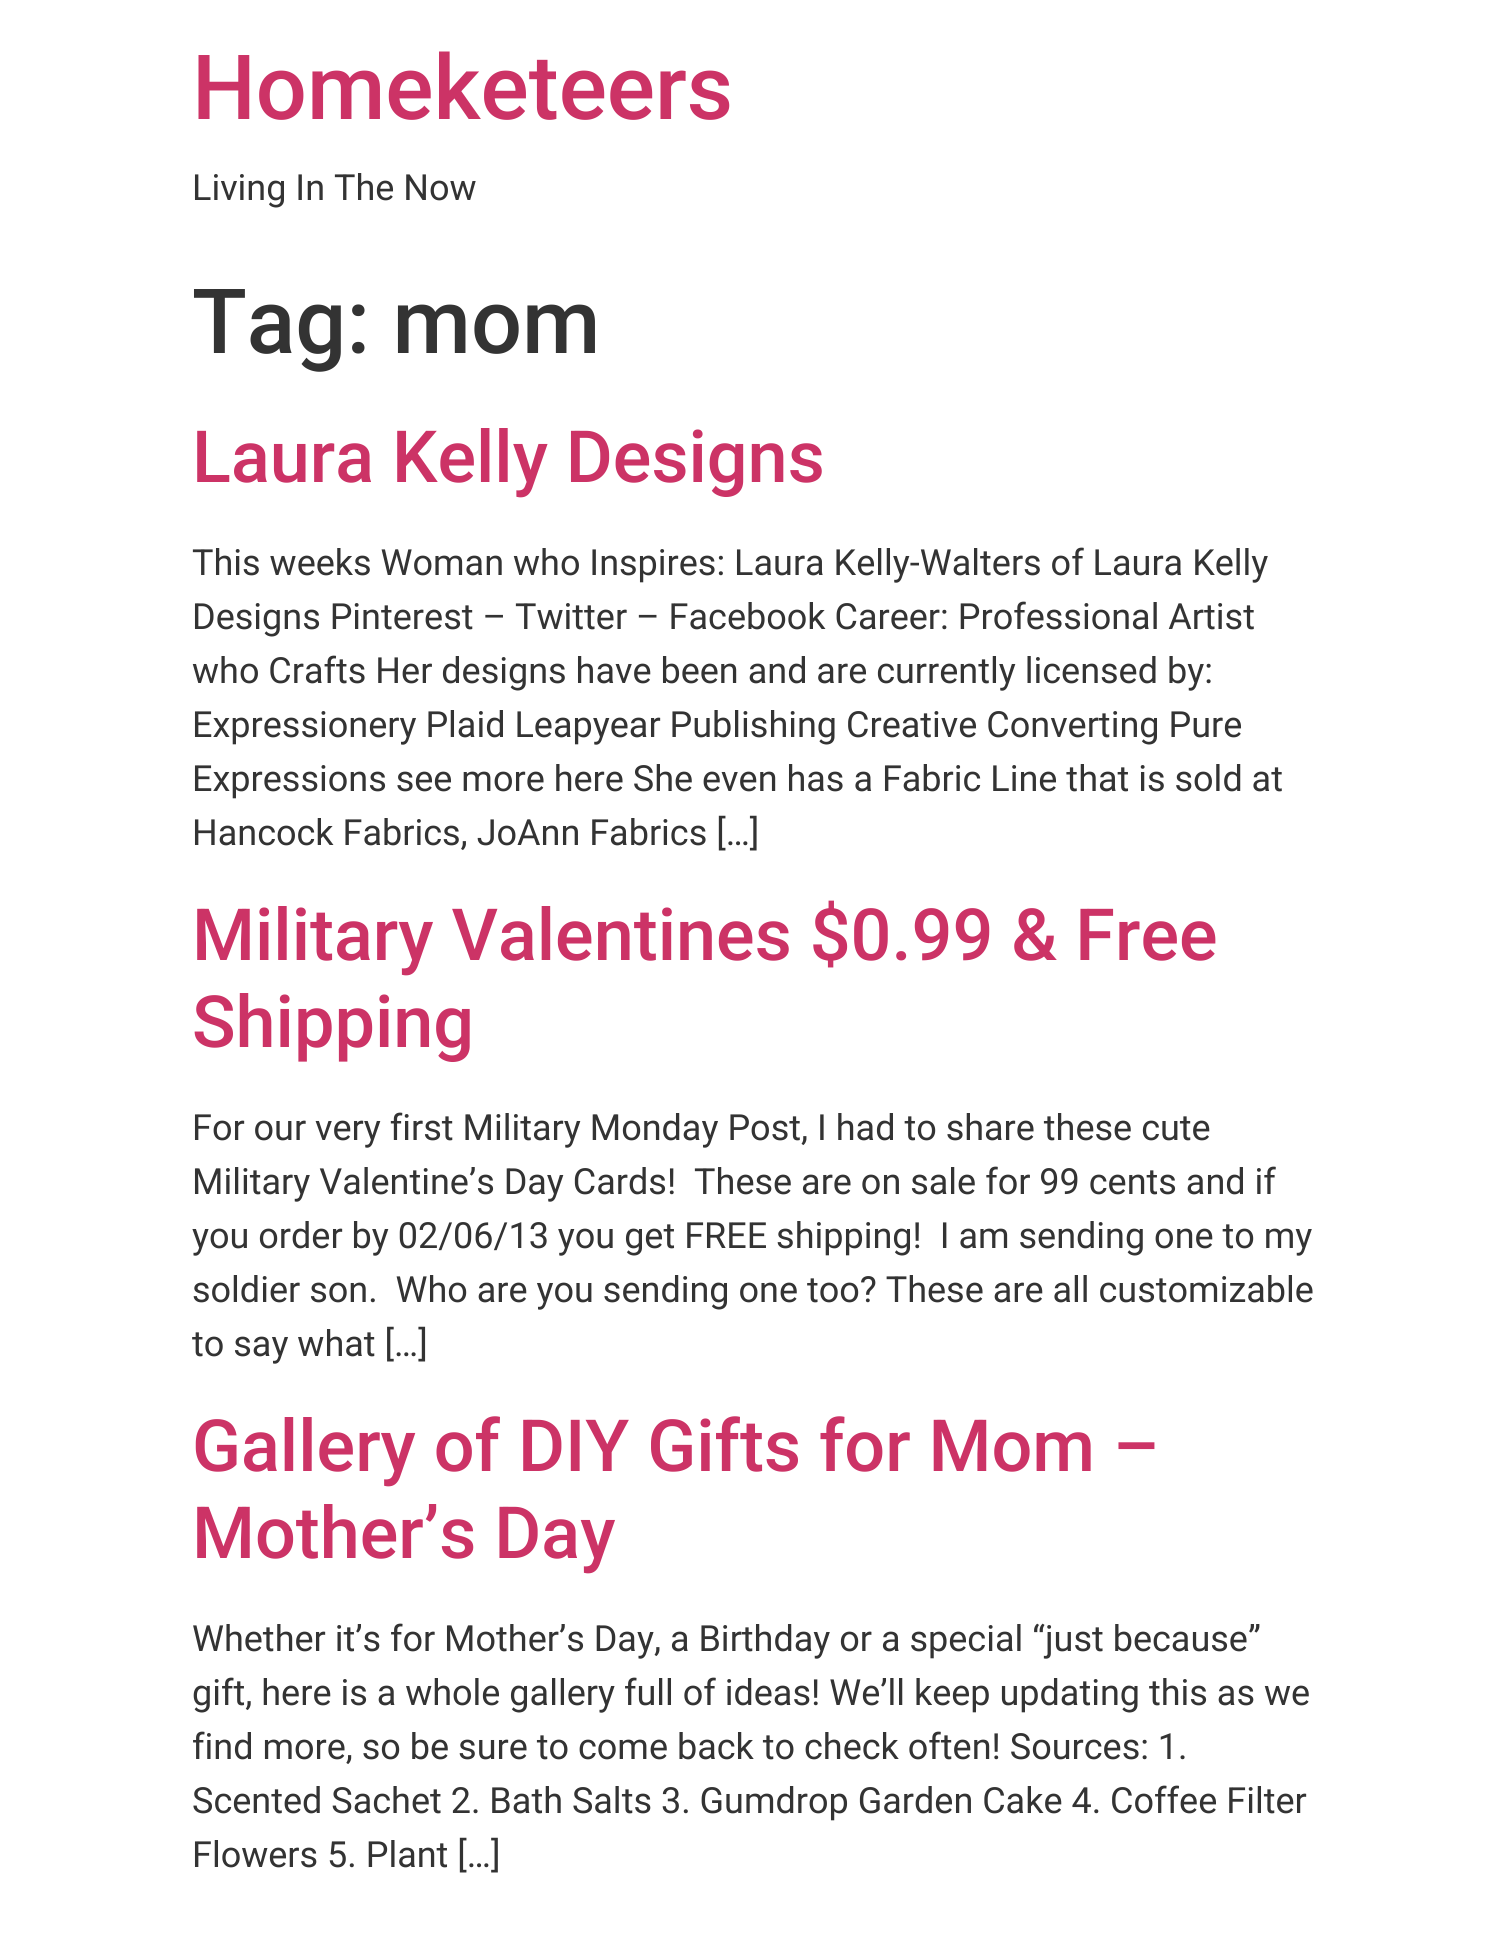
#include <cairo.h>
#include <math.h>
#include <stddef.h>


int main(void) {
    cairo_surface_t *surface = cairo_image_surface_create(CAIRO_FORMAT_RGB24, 1508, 1946);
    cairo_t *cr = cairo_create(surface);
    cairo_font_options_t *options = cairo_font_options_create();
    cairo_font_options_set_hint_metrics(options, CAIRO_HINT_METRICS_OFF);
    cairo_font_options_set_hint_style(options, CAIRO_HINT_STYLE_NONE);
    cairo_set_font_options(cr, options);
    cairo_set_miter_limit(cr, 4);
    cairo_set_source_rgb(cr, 1, 1, 1);
    cairo_paint(cr);
    cairo_select_font_face(cr, "Roboto Medium", CAIRO_FONT_SLANT_NORMAL, CAIRO_FONT_WEIGHT_NORMAL);
    cairo_set_font_size(cr, 90);
    cairo_set_source_rgb(cr, 0.8, 0.2, 0.4);
    cairo_move_to(cr, 192, 119);
    cairo_show_text(cr, "Homeketeers");
    cairo_select_font_face(cr, "Roboto", CAIRO_FONT_SLANT_NORMAL, CAIRO_FONT_WEIGHT_NORMAL);
    cairo_set_font_size(cr, 36);
    cairo_set_source_rgb(cr, 0.2, 0.2, 0.2);
    cairo_move_to(cr, 192, 200);
    cairo_show_text(cr, "Living In The Now");
    cairo_select_font_face(cr, "Roboto Medium", CAIRO_FONT_SLANT_NORMAL, CAIRO_FONT_WEIGHT_NORMAL);
    cairo_set_font_size(cr, 90);
    cairo_move_to(cr, 192, 353);
    cairo_show_text(cr, "Tag: mom");
    cairo_set_font_size(cr, 72);
    cairo_set_source_rgb(cr, 0.8, 0.2, 0.4);
    cairo_move_to(cr, 192, 482);
    cairo_show_text(cr, "Laura Kelly Designs");
    cairo_select_font_face(cr, "Roboto", CAIRO_FONT_SLANT_NORMAL, CAIRO_FONT_WEIGHT_NORMAL);
    cairo_set_font_size(cr, 36);
    cairo_set_source_rgb(cr, 0.2, 0.2, 0.2);
    cairo_move_to(cr, 192, 575);
    cairo_show_text(cr, "This weeks Woman who Inspires: Laura Kelly-Walters of Laura Kelly");
    cairo_move_to(cr, 192, 629);
    cairo_show_text(cr, "Designs Pinterest – Twitter – Facebook Career: Professional Artist");
    cairo_move_to(cr, 192, 683);
    cairo_show_text(cr, "who Crafts Her designs have been and are currently licensed by:");
    cairo_move_to(cr, 192, 737);
    cairo_show_text(cr, "Expressionery Plaid Leapyear Publishing Creative Converting Pure");
    cairo_move_to(cr, 192, 791);
    cairo_show_text(cr, "Expressions see more here She even has a Fabric Line that is sold at");
    cairo_move_to(cr, 192, 845);
    cairo_show_text(cr, "Hancock Fabrics, JoAnn Fabrics […]");
    cairo_select_font_face(cr, "Roboto Medium", CAIRO_FONT_SLANT_NORMAL, CAIRO_FONT_WEIGHT_NORMAL);
    cairo_set_font_size(cr, 72);
    cairo_set_source_rgb(cr, 0.8, 0.2, 0.4);
    cairo_move_to(cr, 192, 960);
    cairo_show_text(cr, "Military Valentines $0.99 & Free");
    cairo_move_to(cr, 192, 1047);
    cairo_show_text(cr, "Shipping");
    cairo_select_font_face(cr, "Roboto", CAIRO_FONT_SLANT_NORMAL, CAIRO_FONT_WEIGHT_NORMAL);
    cairo_set_font_size(cr, 36);
    cairo_set_source_rgb(cr, 0.2, 0.2, 0.2);
    cairo_move_to(cr, 192, 1140);
    cairo_show_text(cr, "For our very first Military Monday Post, I had to share these cute");
    cairo_move_to(cr, 192, 1194);
    cairo_show_text(cr, "Military Valentine’s Day Cards!  These are on sale for 99 cents and if");
    cairo_move_to(cr, 192, 1248);
    cairo_show_text(cr, "you order by 02/06/13 you get FREE shipping!  I am sending one to my");
    cairo_move_to(cr, 192, 1302);
    cairo_show_text(cr, "soldier son.  Who are you sending one too? These are all customizable");
    cairo_move_to(cr, 192, 1356);
    cairo_show_text(cr, "to say what […]");
    cairo_select_font_face(cr, "Roboto Medium", CAIRO_FONT_SLANT_NORMAL, CAIRO_FONT_WEIGHT_NORMAL);
    cairo_set_font_size(cr, 72);
    cairo_set_source_rgb(cr, 0.8, 0.2, 0.4);
    cairo_move_to(cr, 192, 1471);
    cairo_show_text(cr, "Gallery of DIY Gifts for Mom –");
    cairo_move_to(cr, 192, 1558);
    cairo_show_text(cr, "Mother’s Day");
    cairo_select_font_face(cr, "Roboto", CAIRO_FONT_SLANT_NORMAL, CAIRO_FONT_WEIGHT_NORMAL);
    cairo_set_font_size(cr, 36);
    cairo_set_source_rgb(cr, 0.2, 0.2, 0.2);
    cairo_move_to(cr, 192, 1651);
    cairo_show_text(cr, "Whether it’s for Mother’s Day, a Birthday or a special “just because”");
    cairo_move_to(cr, 192, 1705);
    cairo_show_text(cr, "gift, here is a whole gallery full of ideas! We’ll keep updating this as we");
    cairo_move_to(cr, 192, 1759);
    cairo_show_text(cr, "find more, so be sure to come back to check often! Sources: 1.");
    cairo_move_to(cr, 192, 1813);
    cairo_show_text(cr, "Scented Sachet 2. Bath Salts 3. Gumdrop Garden Cake 4. Coffee Filter");
    cairo_move_to(cr, 192, 1867);
    cairo_show_text(cr, "Flowers 5. Plant […]");
    cairo_surface_write_to_png(surface, "page.png");
    cairo_font_options_destroy(options);
    cairo_destroy(cr);
    cairo_surface_destroy(surface);
    return 0;
}
